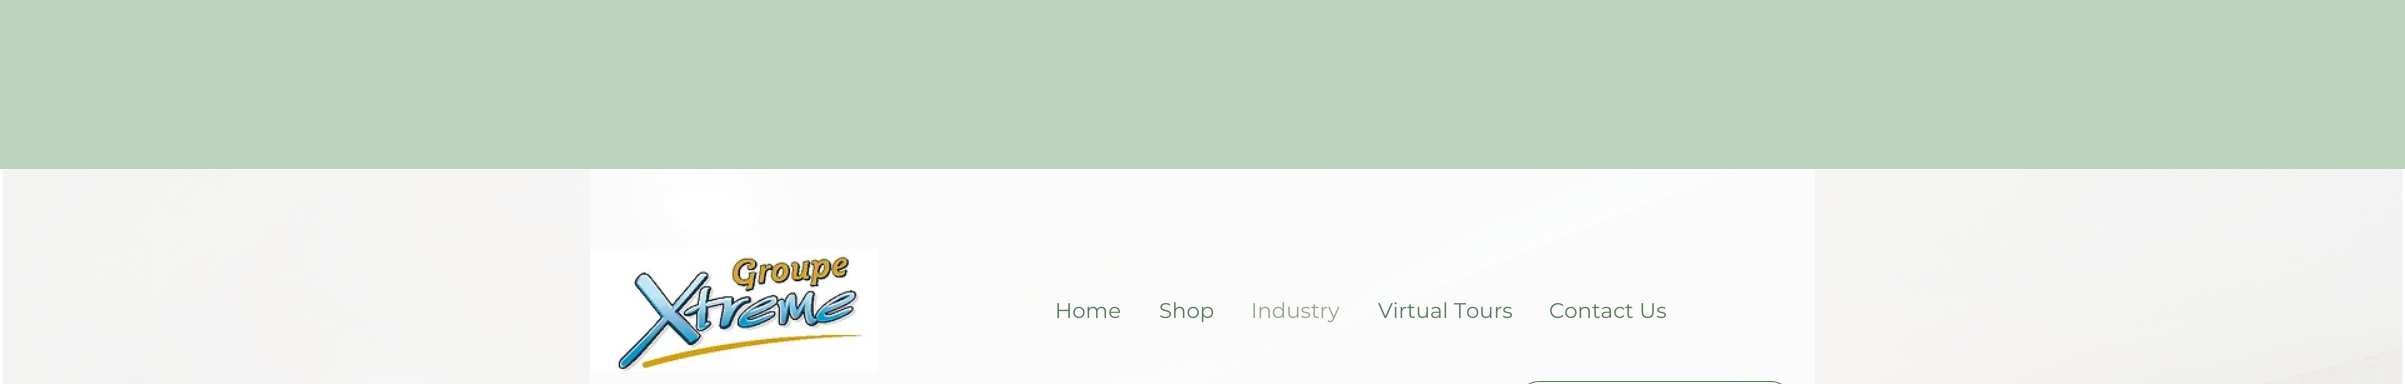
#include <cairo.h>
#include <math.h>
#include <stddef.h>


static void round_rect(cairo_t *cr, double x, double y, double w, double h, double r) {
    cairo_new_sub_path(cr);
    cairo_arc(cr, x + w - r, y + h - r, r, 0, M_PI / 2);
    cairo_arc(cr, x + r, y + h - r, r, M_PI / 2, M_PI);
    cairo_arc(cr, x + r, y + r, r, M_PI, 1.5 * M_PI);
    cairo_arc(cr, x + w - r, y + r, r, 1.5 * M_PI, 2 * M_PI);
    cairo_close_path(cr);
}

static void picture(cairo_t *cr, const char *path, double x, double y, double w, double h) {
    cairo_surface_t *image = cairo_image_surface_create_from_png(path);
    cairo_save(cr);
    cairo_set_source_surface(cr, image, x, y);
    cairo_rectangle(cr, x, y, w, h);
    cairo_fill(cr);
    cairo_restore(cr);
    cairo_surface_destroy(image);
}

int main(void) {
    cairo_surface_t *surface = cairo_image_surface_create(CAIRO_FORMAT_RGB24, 2405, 384);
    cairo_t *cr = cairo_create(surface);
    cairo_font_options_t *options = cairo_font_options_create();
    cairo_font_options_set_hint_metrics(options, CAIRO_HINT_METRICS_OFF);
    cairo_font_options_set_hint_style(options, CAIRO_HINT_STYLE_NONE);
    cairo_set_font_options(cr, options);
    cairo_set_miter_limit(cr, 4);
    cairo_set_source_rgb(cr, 1, 1, 1);
    cairo_paint(cr);
    picture(cr, "img1.png", 2, 169, 2401, 215);
    cairo_set_source_rgba(cr, 1, 1, 1, 0.6);
    cairo_rectangle(cr, 590, 169, 1225, 215);
    cairo_fill(cr);
    cairo_set_source_rgb(cr, 0.737, 0.831, 0.741);
    cairo_rectangle(cr, 0, 0, 2405, 169);
    cairo_fill(cr);
    picture(cr, "img2.png", 590, 249, 287, 122);
    cairo_select_font_face(cr, "Montserrat", CAIRO_FONT_SLANT_NORMAL, CAIRO_FONT_WEIGHT_NORMAL);
    cairo_set_font_size(cr, 21.25);
    cairo_set_source_rgb(cr, 0.329, 0.498, 0.333);
    cairo_move_to(cr, 1055, 318);
    cairo_show_text(cr, "Home");
    cairo_move_to(cr, 1159, 318);
    cairo_show_text(cr, "Shop");
    cairo_set_source_rgb(cr, 0.553, 0.667, 0.557);
    cairo_move_to(cr, 1251, 318);
    cairo_show_text(cr, "Industry");
    cairo_set_source_rgb(cr, 0.329, 0.498, 0.333);
    cairo_move_to(cr, 1378, 318);
    cairo_show_text(cr, "Virtual Tours");
    cairo_move_to(cr, 1549, 318);
    cairo_show_text(cr, "Contact Us");
    round_rect(cr, 1516.5, 381.5, 277, 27, 23);
    cairo_set_line_width(cr, 1);
    cairo_stroke(cr);
    cairo_set_source_rgb(cr, 1, 1, 1);
    round_rect(cr, 1518, 383, 275, 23, 21.5);
    cairo_fill(cr);
    cairo_surface_write_to_png(surface, "page.png");
    cairo_font_options_destroy(options);
    cairo_destroy(cr);
    cairo_surface_destroy(surface);
    return 0;
}
